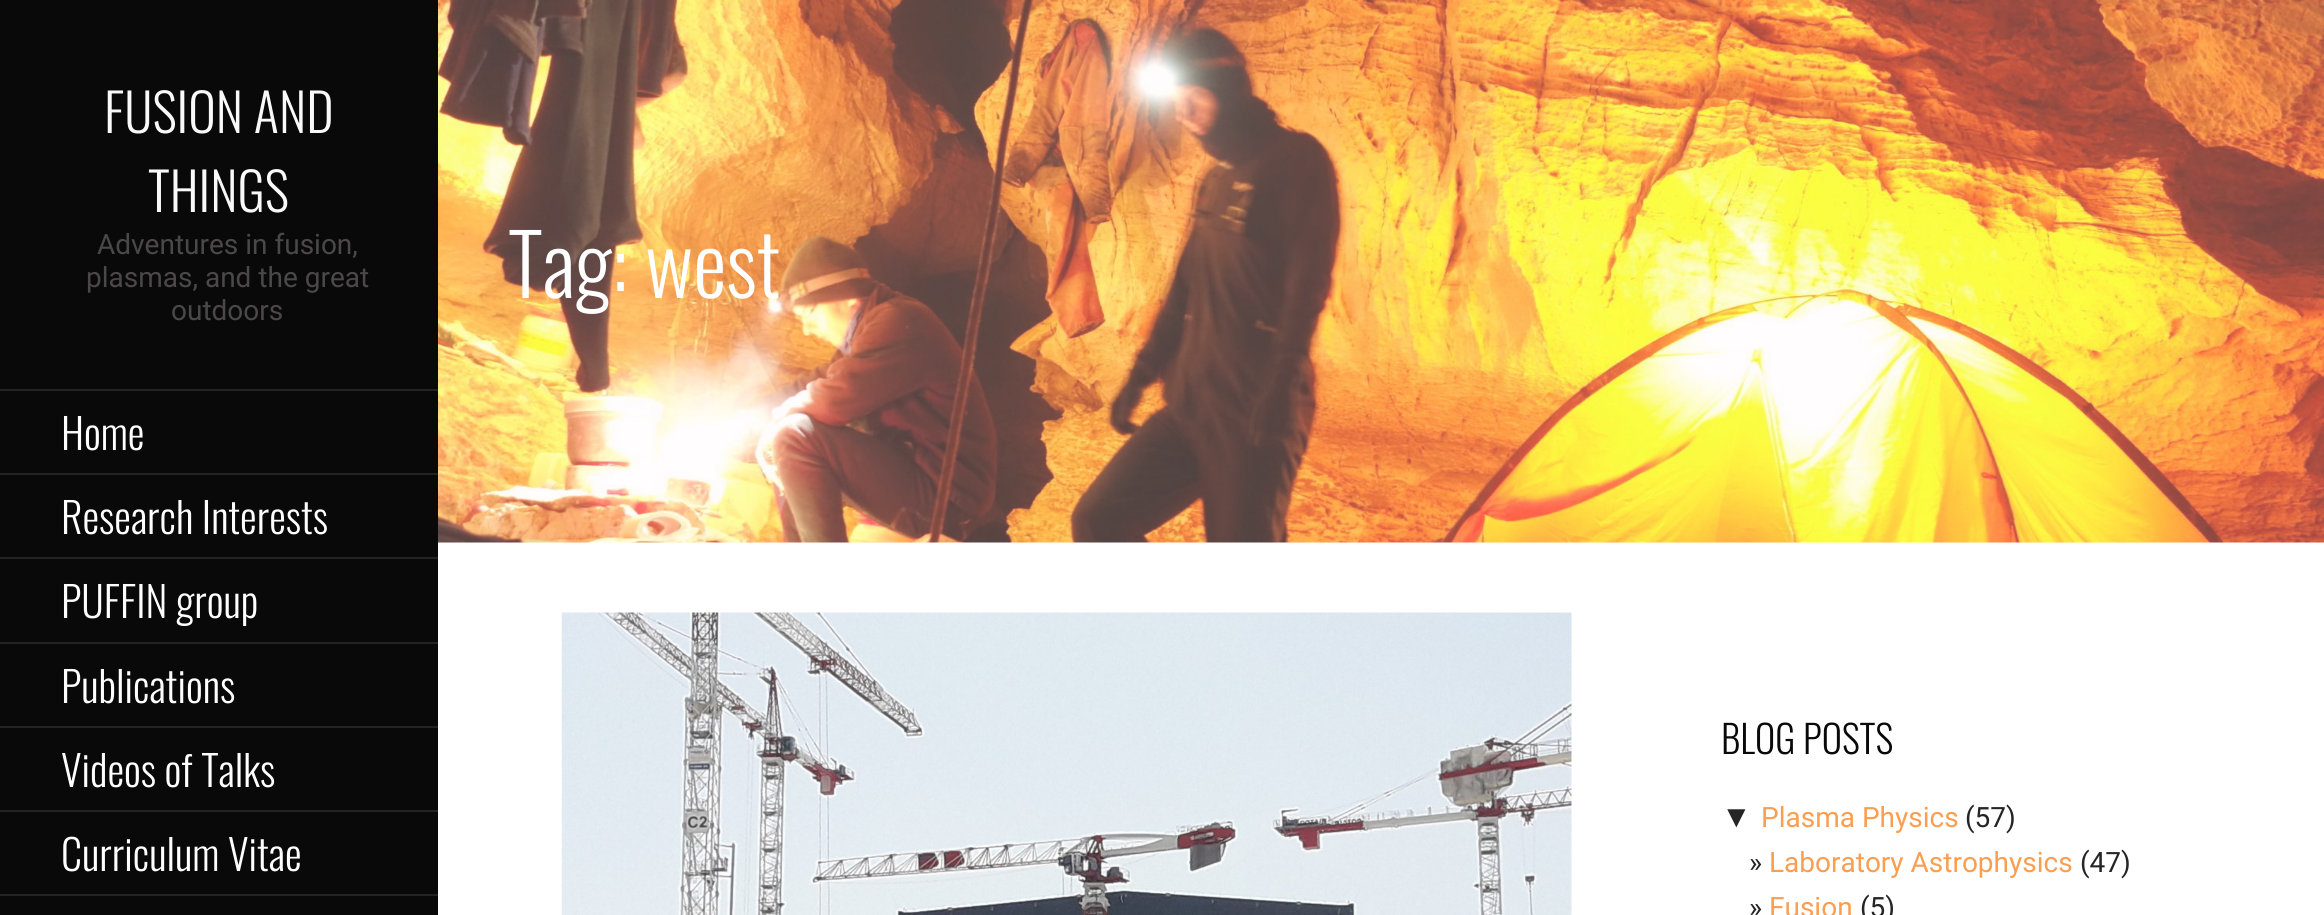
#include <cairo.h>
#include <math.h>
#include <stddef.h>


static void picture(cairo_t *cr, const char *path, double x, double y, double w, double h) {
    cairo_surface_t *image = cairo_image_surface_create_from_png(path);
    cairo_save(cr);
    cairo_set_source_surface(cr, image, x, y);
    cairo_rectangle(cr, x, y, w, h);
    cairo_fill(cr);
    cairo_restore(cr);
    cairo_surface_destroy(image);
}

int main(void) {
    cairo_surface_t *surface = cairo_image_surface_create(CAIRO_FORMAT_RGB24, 2324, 915);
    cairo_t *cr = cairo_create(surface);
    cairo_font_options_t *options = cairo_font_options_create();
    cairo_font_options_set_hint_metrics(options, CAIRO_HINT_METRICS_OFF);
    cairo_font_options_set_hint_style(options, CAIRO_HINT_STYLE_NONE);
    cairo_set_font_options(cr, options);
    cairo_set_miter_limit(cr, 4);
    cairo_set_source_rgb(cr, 1, 1, 1);
    cairo_paint(cr);
    picture(cr, "img1.png", 438, 0, 1886, 543);
    cairo_set_source_rgb(cr, 0.039, 0.039, 0.039);
    cairo_rectangle(cr, 0, 0, 438, 915);
    cairo_fill(cr);
    cairo_select_font_face(cr, "Oswald Light", CAIRO_FONT_SLANT_NORMAL, CAIRO_FONT_WEIGHT_NORMAL);
    cairo_set_font_size(cr, 52.5);
    cairo_set_source_rgb(cr, 0.976, 0.976, 0.976);
    cairo_move_to(cr, 104, 133);
    cairo_show_text(cr, "FUSION AND");
    cairo_move_to(cr, 148, 212);
    cairo_show_text(cr, "THINGS");
    cairo_select_font_face(cr, "Roboto", CAIRO_FONT_SLANT_NORMAL, CAIRO_FONT_WEIGHT_NORMAL);
    cairo_set_font_size(cr, 28);
    cairo_set_source_rgb(cr, 0.29, 0.282, 0.282);
    cairo_move_to(cr, 97, 254);
    cairo_show_text(cr, "Adventures in fusion,");
    cairo_move_to(cr, 86, 287);
    cairo_show_text(cr, "plasmas, and the great");
    cairo_move_to(cr, 171, 320);
    cairo_show_text(cr, "outdoors");
    cairo_set_source_rgb(cr, 0.137, 0.137, 0.137);
    cairo_rectangle(cr, 0, 389, 438, 2);
    cairo_fill(cr);
    cairo_rectangle(cr, 0, 473, 438, 2);
    cairo_fill(cr);
    cairo_select_font_face(cr, "Oswald Light", CAIRO_FONT_SLANT_NORMAL, CAIRO_FONT_WEIGHT_NORMAL);
    cairo_set_font_size(cr, 42);
    cairo_set_source_rgb(cr, 1, 1, 1);
    cairo_move_to(cr, 61, 450);
    cairo_show_text(cr, "Home");
    cairo_set_source_rgb(cr, 0.137, 0.137, 0.137);
    cairo_rectangle(cr, 0, 557, 438, 2);
    cairo_fill(cr);
    cairo_set_source_rgb(cr, 1, 1, 1);
    cairo_move_to(cr, 61, 534);
    cairo_show_text(cr, "Research Interests");
    cairo_set_source_rgb(cr, 0.137, 0.137, 0.137);
    cairo_rectangle(cr, 0, 642, 438, 2);
    cairo_fill(cr);
    cairo_set_source_rgb(cr, 1, 1, 1);
    cairo_move_to(cr, 61, 618);
    cairo_show_text(cr, "PUFFIN group");
    cairo_set_source_rgb(cr, 0.137, 0.137, 0.137);
    cairo_rectangle(cr, 0, 726, 438, 2);
    cairo_fill(cr);
    cairo_set_source_rgb(cr, 1, 1, 1);
    cairo_move_to(cr, 61, 703);
    cairo_show_text(cr, "Publications");
    cairo_set_source_rgb(cr, 0.137, 0.137, 0.137);
    cairo_rectangle(cr, 0, 810, 438, 2);
    cairo_fill(cr);
    cairo_set_source_rgb(cr, 1, 1, 1);
    cairo_move_to(cr, 61, 787);
    cairo_show_text(cr, "Videos of Talks");
    cairo_set_source_rgb(cr, 0.137, 0.137, 0.137);
    cairo_rectangle(cr, 0, 894, 438, 2);
    cairo_fill(cr);
    cairo_set_source_rgb(cr, 1, 1, 1);
    cairo_move_to(cr, 61, 871);
    cairo_show_text(cr, "Curriculum Vitae");
    cairo_set_font_size(cr, 84);
    cairo_move_to(cr, 508, 298);
    cairo_show_text(cr, "Tag: west");
    picture(cr, "img2.png", 561, 612, 1011, 303);
    cairo_set_font_size(cr, 38.5);
    cairo_set_source_rgb(cr, 0.039, 0.039, 0.039);
    cairo_move_to(cr, 1721, 754);
    cairo_show_text(cr, "BLOG POSTS");
    cairo_select_font_face(cr, "Liberation Sans", CAIRO_FONT_SLANT_NORMAL, CAIRO_FONT_WEIGHT_NORMAL);
    cairo_set_font_size(cr, 31);
    cairo_set_source_rgb(cr, 0.145, 0.145, 0.145);
    cairo_move_to(cr, 1721, 827);
    cairo_show_text(cr, "▼");
    cairo_select_font_face(cr, "Roboto", CAIRO_FONT_SLANT_NORMAL, CAIRO_FONT_WEIGHT_NORMAL);
    cairo_set_font_size(cr, 28);
    cairo_set_source_rgb(cr, 0.988, 0.62, 0.31);
    cairo_move_to(cr, 1761, 827);
    cairo_show_text(cr, "Plasma Physics");
    cairo_set_source_rgb(cr, 0.145, 0.145, 0.145);
    cairo_move_to(cr, 1965, 827);
    cairo_show_text(cr, "(57)");
    cairo_move_to(cr, 1749, 872);
    cairo_show_text(cr, "»");
    cairo_set_source_rgb(cr, 0.988, 0.62, 0.31);
    cairo_move_to(cr, 1769, 872);
    cairo_show_text(cr, "Laboratory Astrophysics");
    cairo_set_source_rgb(cr, 0.145, 0.145, 0.145);
    cairo_move_to(cr, 2080, 872);
    cairo_show_text(cr, "(47)");
    cairo_move_to(cr, 1749, 917);
    cairo_show_text(cr, "»");
    cairo_set_source_rgb(cr, 0.988, 0.62, 0.31);
    cairo_move_to(cr, 1769, 917);
    cairo_show_text(cr, "Fusion");
    cairo_set_source_rgb(cr, 0.145, 0.145, 0.145);
    cairo_move_to(cr, 1860, 917);
    cairo_show_text(cr, "(5)");
    cairo_surface_write_to_png(surface, "page.png");
    cairo_font_options_destroy(options);
    cairo_destroy(cr);
    cairo_surface_destroy(surface);
    return 0;
}
